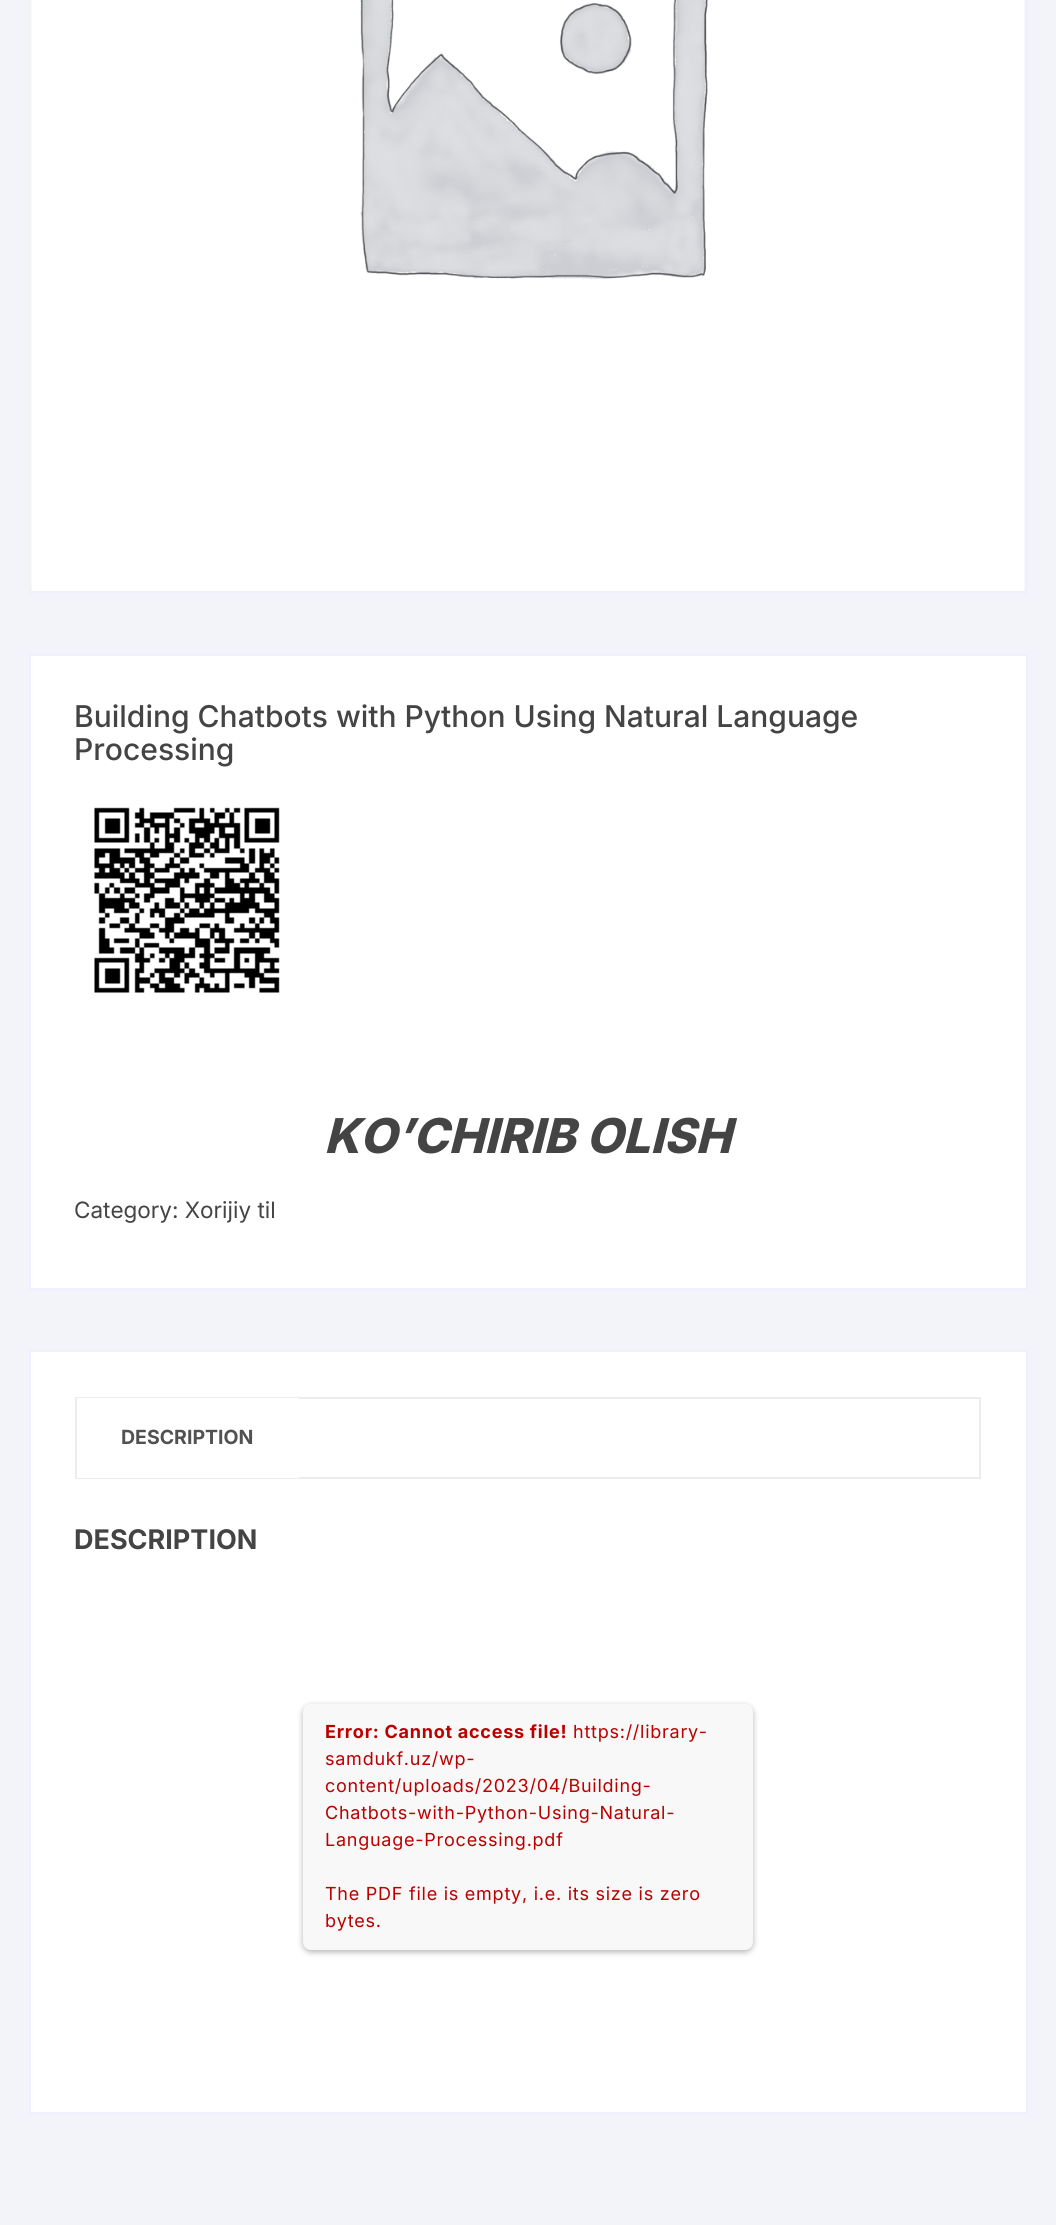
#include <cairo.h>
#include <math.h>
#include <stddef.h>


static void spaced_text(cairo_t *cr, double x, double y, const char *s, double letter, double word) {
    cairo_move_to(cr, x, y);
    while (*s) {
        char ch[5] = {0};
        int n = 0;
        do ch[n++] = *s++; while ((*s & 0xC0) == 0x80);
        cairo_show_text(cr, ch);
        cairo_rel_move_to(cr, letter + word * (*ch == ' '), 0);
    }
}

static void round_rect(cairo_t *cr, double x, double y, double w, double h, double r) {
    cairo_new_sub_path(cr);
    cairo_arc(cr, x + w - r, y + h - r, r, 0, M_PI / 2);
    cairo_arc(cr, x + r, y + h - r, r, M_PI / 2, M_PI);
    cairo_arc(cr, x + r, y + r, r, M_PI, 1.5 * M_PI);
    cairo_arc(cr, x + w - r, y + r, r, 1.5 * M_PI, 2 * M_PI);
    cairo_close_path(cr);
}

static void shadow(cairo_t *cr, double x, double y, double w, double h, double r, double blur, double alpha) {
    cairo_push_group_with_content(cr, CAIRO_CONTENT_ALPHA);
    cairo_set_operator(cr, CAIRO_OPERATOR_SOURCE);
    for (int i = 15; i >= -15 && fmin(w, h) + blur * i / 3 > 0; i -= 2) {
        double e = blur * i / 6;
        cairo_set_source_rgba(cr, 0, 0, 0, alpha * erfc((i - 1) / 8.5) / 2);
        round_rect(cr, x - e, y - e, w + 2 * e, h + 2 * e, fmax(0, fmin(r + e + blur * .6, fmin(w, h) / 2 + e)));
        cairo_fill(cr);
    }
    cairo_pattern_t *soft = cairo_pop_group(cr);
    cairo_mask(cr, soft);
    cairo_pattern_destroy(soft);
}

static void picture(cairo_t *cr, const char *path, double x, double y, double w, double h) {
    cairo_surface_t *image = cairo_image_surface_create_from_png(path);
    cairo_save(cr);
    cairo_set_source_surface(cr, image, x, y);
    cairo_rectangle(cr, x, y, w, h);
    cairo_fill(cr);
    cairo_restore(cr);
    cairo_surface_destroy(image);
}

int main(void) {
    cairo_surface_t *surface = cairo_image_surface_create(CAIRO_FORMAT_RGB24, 1056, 2225);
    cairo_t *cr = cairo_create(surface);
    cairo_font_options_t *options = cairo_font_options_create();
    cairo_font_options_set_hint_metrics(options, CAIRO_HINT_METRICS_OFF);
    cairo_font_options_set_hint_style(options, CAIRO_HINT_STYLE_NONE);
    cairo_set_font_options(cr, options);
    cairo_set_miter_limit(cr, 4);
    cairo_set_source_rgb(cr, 0.953, 0.957, 0.973);
    cairo_paint(cr);
    cairo_set_source_rgb(cr, 1, 1, 1);
    cairo_rectangle(cr, 32, 590, 992, 1);
    cairo_fill(cr);
    cairo_rectangle(cr, 30, -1, 997, 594);
    cairo_set_source_rgb(cr, 0.933, 0.945, 0.992);
    cairo_stroke(cr);
    cairo_rectangle(cr, 31, -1, 994, 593);
    cairo_set_source_rgb(cr, 0.949, 0.949, 0.949);
    cairo_stroke(cr);
    picture(cr, "img1.png", 31, 0, 994, 590);
    cairo_set_source_rgb(cr, 1, 1, 1);
    cairo_rectangle(cr, 30, 655, 997, 634);
    cairo_fill_preserve(cr);
    cairo_set_source_rgb(cr, 0.933, 0.945, 0.992);
    cairo_stroke(cr);
    cairo_select_font_face(cr, "Inter Medium", CAIRO_FONT_SLANT_NORMAL, CAIRO_FONT_WEIGHT_NORMAL);
    cairo_set_font_size(cr, 30);
    cairo_set_source_rgb(cr, 0.267, 0.267, 0.267);
    cairo_move_to(cr, 74, 727);
    cairo_show_text(cr, "Building Chatbots with Python Using Natural Language");
    cairo_move_to(cr, 74, 760);
    cairo_show_text(cr, "Processing");
    picture(cr, "img2.png", 94, 807, 186, 186);
    cairo_select_font_face(cr, "Inter ExtraBold", CAIRO_FONT_SLANT_ITALIC, CAIRO_FONT_WEIGHT_NORMAL);
    cairo_set_font_size(cr, 48);
    cairo_move_to(cr, 324, 1153);
    cairo_show_text(cr, "KO’CHIRIB OLISH");
    cairo_select_font_face(cr, "Inter", CAIRO_FONT_SLANT_NORMAL, CAIRO_FONT_WEIGHT_NORMAL);
    cairo_set_font_size(cr, 22.5);
    cairo_move_to(cr, 74, 1218);
    cairo_show_text(cr, "Category: Xorijiy til");
    cairo_set_source_rgb(cr, 1, 1, 1);
    cairo_rectangle(cr, 30, 1351, 997, 762);
    cairo_fill_preserve(cr);
    cairo_set_source_rgb(cr, 0.933, 0.945, 0.992);
    cairo_stroke(cr);
    cairo_rectangle(cr, 76, 1398, 904, 80);
    cairo_set_source_rgb(cr, 0.925, 0.925, 0.925);
    cairo_stroke(cr);
    cairo_set_source_rgb(cr, 1, 1, 1);
    cairo_rectangle(cr, 77, 1398, 222, 80);
    cairo_fill(cr);
    cairo_select_font_face(cr, "Inter", CAIRO_FONT_SLANT_NORMAL, CAIRO_FONT_WEIGHT_BOLD);
    cairo_set_font_size(cr, 19.5);
    cairo_set_source_rgb(cr, 0.318, 0.318, 0.318);
    cairo_move_to(cr, 121, 1444);
    cairo_show_text(cr, "DESCRIPTION");
    cairo_set_font_size(cr, 27);
    cairo_set_source_rgb(cr, 0.267, 0.267, 0.267);
    cairo_move_to(cr, 74, 1549);
    cairo_show_text(cr, "DESCRIPTION");
    cairo_set_source_rgb(cr, 0, 0, 0);
    shadow(cr, 303, 1706, 450, 246, 8, 3, 0.3);
    cairo_set_source_rgb(cr, 0.969, 0.969, 0.969);
    round_rect(cr, 303, 1704, 450, 246, 8);
    cairo_fill(cr);
    cairo_set_font_size(cr, 18);
    cairo_set_source_rgb(cr, 0.733, 0, 0);
    spaced_text(cr, 325, 1738, "Error: Cannot access file!", 0.75, 0);
    cairo_select_font_face(cr, "Inter", CAIRO_FONT_SLANT_NORMAL, CAIRO_FONT_WEIGHT_NORMAL);
    spaced_text(cr, 573, 1738, "https://library-", 0.75, 0);
    spaced_text(cr, 325, 1765, "samdukf.uz/wp-", 0.75, 0);
    spaced_text(cr, 325, 1792, "content/uploads/2023/04/Building-", 0.75, 0);
    spaced_text(cr, 325, 1819, "Chatbots-with-Python-Using-Natural-", 0.75, 0);
    spaced_text(cr, 325, 1846, "Language-Processing.pdf", 0.75, 0);
    spaced_text(cr, 325, 1900, "The PDF file is empty, i.e. its size is zero", 0.75, 0);
    spaced_text(cr, 325, 1927, "bytes.", 0.75, 0);
    cairo_surface_write_to_png(surface, "page.png");
    cairo_font_options_destroy(options);
    cairo_destroy(cr);
    cairo_surface_destroy(surface);
    return 0;
}
